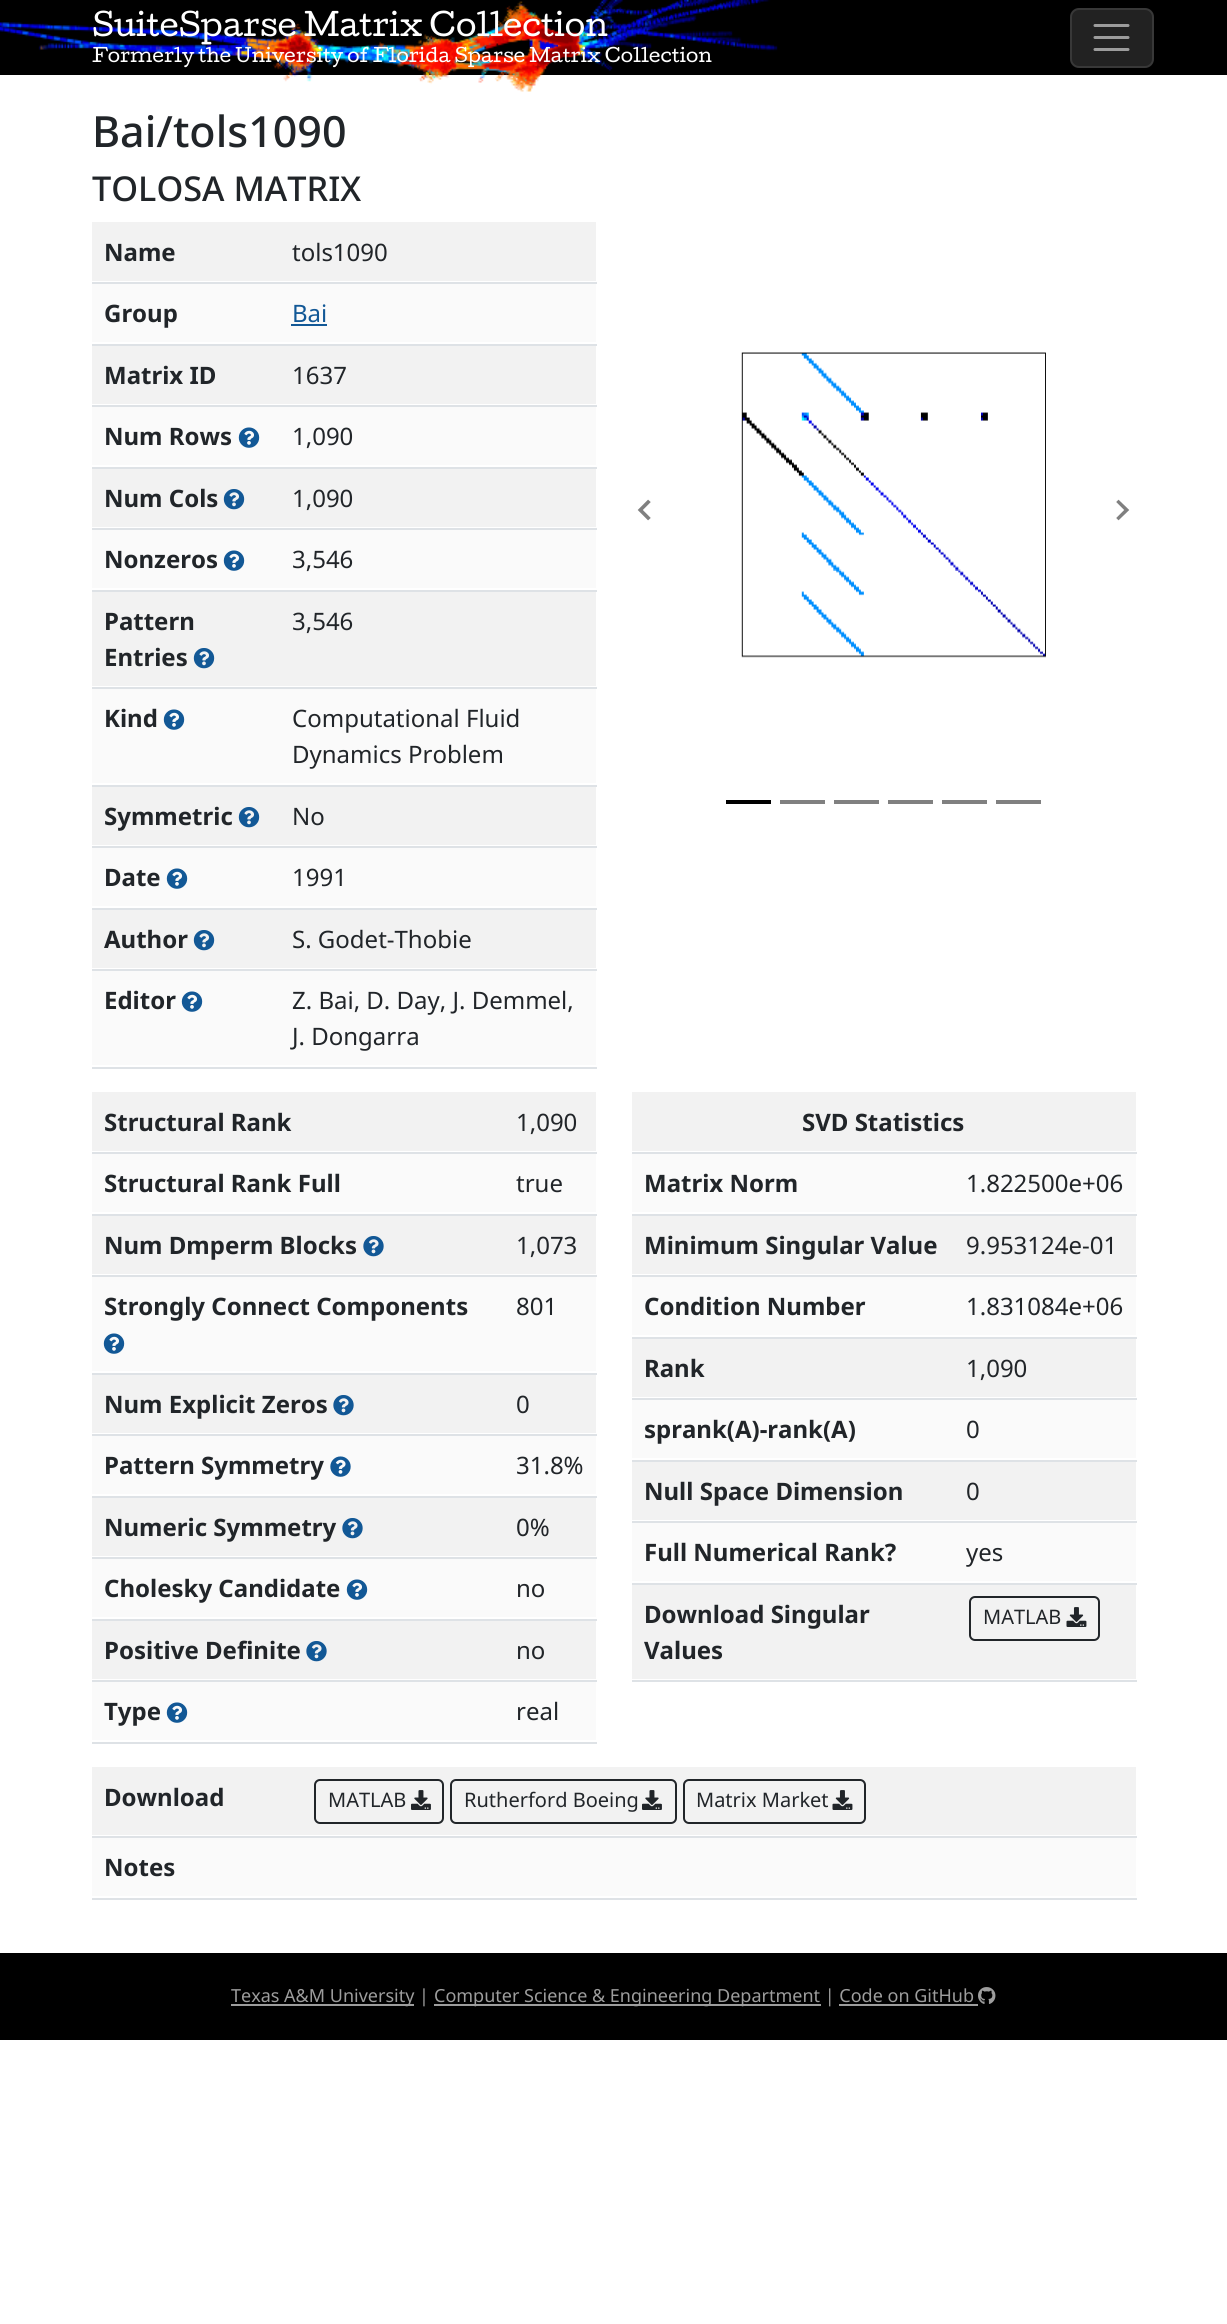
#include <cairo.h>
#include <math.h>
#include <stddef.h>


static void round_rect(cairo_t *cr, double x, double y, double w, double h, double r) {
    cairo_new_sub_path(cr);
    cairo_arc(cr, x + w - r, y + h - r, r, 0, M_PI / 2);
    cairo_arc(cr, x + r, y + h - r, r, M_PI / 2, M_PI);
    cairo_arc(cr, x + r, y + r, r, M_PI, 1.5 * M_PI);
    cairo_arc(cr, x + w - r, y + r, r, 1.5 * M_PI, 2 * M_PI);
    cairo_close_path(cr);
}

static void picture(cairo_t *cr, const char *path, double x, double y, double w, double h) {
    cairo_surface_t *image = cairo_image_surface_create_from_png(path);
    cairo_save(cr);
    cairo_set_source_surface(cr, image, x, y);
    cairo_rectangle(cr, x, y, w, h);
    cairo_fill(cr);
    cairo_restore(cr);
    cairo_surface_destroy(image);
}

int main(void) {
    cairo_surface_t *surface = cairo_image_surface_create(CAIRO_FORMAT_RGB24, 1227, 2324);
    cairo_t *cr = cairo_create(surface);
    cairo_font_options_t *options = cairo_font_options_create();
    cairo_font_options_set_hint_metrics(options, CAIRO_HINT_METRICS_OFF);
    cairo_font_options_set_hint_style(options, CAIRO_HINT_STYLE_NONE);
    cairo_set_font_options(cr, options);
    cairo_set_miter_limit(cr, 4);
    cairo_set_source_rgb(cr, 1, 1, 1);
    cairo_paint(cr);
    cairo_set_source_rgb(cr, 0, 0, 0);
    cairo_rectangle(cr, 0, 0, 1227, 75);
    cairo_fill(cr);
    picture(cr, "img1.png", 0, 0, 778, 92);
    cairo_select_font_face(cr, "Cutive", CAIRO_FONT_SLANT_NORMAL, CAIRO_FONT_WEIGHT_NORMAL);
    cairo_set_font_size(cr, 30);
    cairo_set_source_rgb(cr, 1, 1, 1);
    cairo_move_to(cr, 92, 36);
    cairo_show_text(cr, "SuiteSparse Matrix Collection");
    cairo_set_font_size(cr, 18);
    cairo_move_to(cr, 92, 62);
    cairo_show_text(cr, "Formerly the University of Florida Sparse Matrix Collection");
    cairo_set_source_rgb(cr, 0.133, 0.133, 0.133);
    round_rect(cr, 1070, 8, 84, 60, 9);
    cairo_fill(cr);
    round_rect(cr, 1071, 9, 82, 58, 8);
    cairo_set_source_rgba(cr, 1, 1, 1, 0.1);
    cairo_stroke(cr);
    cairo_new_path(cr);
    cairo_move_to(cr, 1095, 25.5);
    cairo_line_to(cr, 1128, 25.5);
    cairo_move_to(cr, 1095, 37.5);
    cairo_line_to(cr, 1128, 37.5);
    cairo_move_to(cr, 1095, 49.5);
    cairo_line_to(cr, 1128, 49.5);
    cairo_set_source_rgb(cr, 0.612, 0.612, 0.612);
    cairo_set_line_width(cr, 3);
    cairo_set_line_cap(cr, CAIRO_LINE_CAP_ROUND);
    cairo_stroke(cr);
    cairo_select_font_face(cr, "Noto Sans Medium", CAIRO_FONT_SLANT_NORMAL, CAIRO_FONT_WEIGHT_NORMAL);
    cairo_set_font_size(cr, 43);
    cairo_set_source_rgb(cr, 0.129, 0.145, 0.161);
    cairo_move_to(cr, 92, 147);
    cairo_show_text(cr, "Bai/tols1090");
    cairo_set_font_size(cr, 34.25);
    cairo_move_to(cr, 92, 201);
    cairo_show_text(cr, "TOLOSA MATRIX");
    cairo_set_source_rgb(cr, 0.949, 0.949, 0.949);
    cairo_rectangle(cr, 92, 222, 504, 59);
    cairo_fill(cr);
    cairo_select_font_face(cr, "Noto Sans", CAIRO_FONT_SLANT_NORMAL, CAIRO_FONT_WEIGHT_BOLD);
    cairo_set_font_size(cr, 24);
    cairo_set_source_rgb(cr, 0.129, 0.145, 0.161);
    cairo_move_to(cr, 104, 261);
    cairo_show_text(cr, "Name");
    cairo_set_source_rgb(cr, 0.871, 0.886, 0.902);
    cairo_rectangle(cr, 92, 282, 505, 2);
    cairo_fill(cr);
    cairo_select_font_face(cr, "Noto Sans", CAIRO_FONT_SLANT_NORMAL, CAIRO_FONT_WEIGHT_NORMAL);
    cairo_set_source_rgb(cr, 0.129, 0.145, 0.161);
    cairo_move_to(cr, 292, 261);
    cairo_show_text(cr, "tols1090");
    cairo_set_source_rgb(cr, 0.98, 0.98, 0.98);
    cairo_rectangle(cr, 92, 284, 504, 58);
    cairo_fill(cr);
    cairo_select_font_face(cr, "Noto Sans", CAIRO_FONT_SLANT_NORMAL, CAIRO_FONT_WEIGHT_BOLD);
    cairo_set_source_rgb(cr, 0.129, 0.145, 0.161);
    cairo_move_to(cr, 104, 322);
    cairo_show_text(cr, "Group");
    cairo_set_source_rgb(cr, 0.871, 0.886, 0.902);
    cairo_rectangle(cr, 92, 344, 505, 2);
    cairo_fill(cr);
    cairo_select_font_face(cr, "Noto Sans", CAIRO_FONT_SLANT_NORMAL, CAIRO_FONT_WEIGHT_NORMAL);
    cairo_set_source_rgb(cr, 0.071, 0.345, 0.588);
    cairo_move_to(cr, 292, 322);
    cairo_show_text(cr, "Bai");
    cairo_rectangle(cr, 291, 324, 36, 2);
    cairo_fill(cr);
    cairo_set_source_rgb(cr, 0.949, 0.949, 0.949);
    cairo_rectangle(cr, 92, 346, 504, 58);
    cairo_fill(cr);
    cairo_select_font_face(cr, "Noto Sans", CAIRO_FONT_SLANT_NORMAL, CAIRO_FONT_WEIGHT_BOLD);
    cairo_set_source_rgb(cr, 0.129, 0.145, 0.161);
    cairo_move_to(cr, 104, 384);
    cairo_show_text(cr, "Matrix ID");
    cairo_set_source_rgb(cr, 0.871, 0.886, 0.902);
    cairo_rectangle(cr, 92, 405, 505, 2);
    cairo_fill(cr);
    cairo_select_font_face(cr, "Noto Sans", CAIRO_FONT_SLANT_NORMAL, CAIRO_FONT_WEIGHT_NORMAL);
    cairo_set_source_rgb(cr, 0.129, 0.145, 0.161);
    cairo_move_to(cr, 292, 384);
    cairo_show_text(cr, "1637");
    cairo_set_source_rgb(cr, 0.98, 0.98, 0.98);
    cairo_rectangle(cr, 92, 407, 504, 58);
    cairo_fill(cr);
    cairo_select_font_face(cr, "Noto Sans", CAIRO_FONT_SLANT_NORMAL, CAIRO_FONT_WEIGHT_BOLD);
    cairo_set_source_rgb(cr, 0.129, 0.145, 0.161);
    cairo_move_to(cr, 104, 445);
    cairo_show_text(cr, "Num Rows");
    picture(cr, "img2.png", 238, 427, 22, 21);
    cairo_set_source_rgb(cr, 0.871, 0.886, 0.902);
    cairo_rectangle(cr, 92, 467, 505, 2);
    cairo_fill(cr);
    cairo_select_font_face(cr, "Noto Sans", CAIRO_FONT_SLANT_NORMAL, CAIRO_FONT_WEIGHT_NORMAL);
    cairo_set_source_rgb(cr, 0.129, 0.145, 0.161);
    cairo_move_to(cr, 292, 445);
    cairo_show_text(cr, "1,090");
    cairo_set_source_rgb(cr, 0.949, 0.949, 0.949);
    cairo_rectangle(cr, 92, 469, 504, 58);
    cairo_fill(cr);
    cairo_select_font_face(cr, "Noto Sans", CAIRO_FONT_SLANT_NORMAL, CAIRO_FONT_WEIGHT_BOLD);
    cairo_set_source_rgb(cr, 0.129, 0.145, 0.161);
    cairo_move_to(cr, 104, 507);
    cairo_show_text(cr, "Num Cols");
    picture(cr, "img3.png", 223, 489, 22, 21);
    cairo_set_source_rgb(cr, 0.871, 0.886, 0.902);
    cairo_rectangle(cr, 92, 528, 505, 2);
    cairo_fill(cr);
    cairo_select_font_face(cr, "Noto Sans", CAIRO_FONT_SLANT_NORMAL, CAIRO_FONT_WEIGHT_NORMAL);
    cairo_set_source_rgb(cr, 0.129, 0.145, 0.161);
    cairo_move_to(cr, 292, 507);
    cairo_show_text(cr, "1,090");
    cairo_set_source_rgb(cr, 0.98, 0.98, 0.98);
    cairo_rectangle(cr, 92, 530, 504, 58);
    cairo_fill(cr);
    cairo_select_font_face(cr, "Noto Sans", CAIRO_FONT_SLANT_NORMAL, CAIRO_FONT_WEIGHT_BOLD);
    cairo_set_source_rgb(cr, 0.129, 0.145, 0.161);
    cairo_move_to(cr, 104, 568);
    cairo_show_text(cr, "Nonzeros");
    picture(cr, "img2.png", 223, 550, 22, 21);
    cairo_set_source_rgb(cr, 0.871, 0.886, 0.902);
    cairo_rectangle(cr, 92, 590, 505, 2);
    cairo_fill(cr);
    cairo_select_font_face(cr, "Noto Sans", CAIRO_FONT_SLANT_NORMAL, CAIRO_FONT_WEIGHT_NORMAL);
    cairo_set_source_rgb(cr, 0.129, 0.145, 0.161);
    cairo_move_to(cr, 292, 568);
    cairo_show_text(cr, "3,546");
    cairo_set_source_rgb(cr, 0.949, 0.949, 0.949);
    cairo_rectangle(cr, 92, 592, 504, 94);
    cairo_fill(cr);
    cairo_select_font_face(cr, "Noto Sans", CAIRO_FONT_SLANT_NORMAL, CAIRO_FONT_WEIGHT_BOLD);
    cairo_set_source_rgb(cr, 0.129, 0.145, 0.161);
    cairo_move_to(cr, 104, 630);
    cairo_show_text(cr, "Pattern");
    cairo_move_to(cr, 104, 666);
    cairo_show_text(cr, "Entries");
    picture(cr, "img3.png", 193, 648, 22, 21);
    cairo_set_source_rgb(cr, 0.871, 0.886, 0.902);
    cairo_rectangle(cr, 92, 687, 505, 2);
    cairo_fill(cr);
    cairo_select_font_face(cr, "Noto Sans", CAIRO_FONT_SLANT_NORMAL, CAIRO_FONT_WEIGHT_NORMAL);
    cairo_set_source_rgb(cr, 0.129, 0.145, 0.161);
    cairo_move_to(cr, 292, 630);
    cairo_show_text(cr, "3,546");
    cairo_set_source_rgb(cr, 0.98, 0.98, 0.98);
    cairo_rectangle(cr, 92, 689, 504, 94);
    cairo_fill(cr);
    cairo_select_font_face(cr, "Noto Sans", CAIRO_FONT_SLANT_NORMAL, CAIRO_FONT_WEIGHT_BOLD);
    cairo_set_source_rgb(cr, 0.129, 0.145, 0.161);
    cairo_move_to(cr, 104, 727);
    cairo_show_text(cr, "Kind");
    picture(cr, "img2.png", 163, 709, 22, 21);
    cairo_set_source_rgb(cr, 0.871, 0.886, 0.902);
    cairo_rectangle(cr, 92, 785, 505, 2);
    cairo_fill(cr);
    cairo_select_font_face(cr, "Noto Sans", CAIRO_FONT_SLANT_NORMAL, CAIRO_FONT_WEIGHT_NORMAL);
    cairo_set_source_rgb(cr, 0.129, 0.145, 0.161);
    cairo_move_to(cr, 292, 727);
    cairo_show_text(cr, "Computational Fluid");
    cairo_move_to(cr, 292, 763);
    cairo_show_text(cr, "Dynamics Problem");
    cairo_set_source_rgb(cr, 0.949, 0.949, 0.949);
    cairo_rectangle(cr, 92, 787, 504, 58);
    cairo_fill(cr);
    cairo_select_font_face(cr, "Noto Sans", CAIRO_FONT_SLANT_NORMAL, CAIRO_FONT_WEIGHT_BOLD);
    cairo_set_source_rgb(cr, 0.129, 0.145, 0.161);
    cairo_move_to(cr, 104, 825);
    cairo_show_text(cr, "Symmetric");
    picture(cr, "img3.png", 238, 807, 22, 21);
    cairo_set_source_rgb(cr, 0.871, 0.886, 0.902);
    cairo_rectangle(cr, 92, 846, 505, 2);
    cairo_fill(cr);
    cairo_select_font_face(cr, "Noto Sans", CAIRO_FONT_SLANT_NORMAL, CAIRO_FONT_WEIGHT_NORMAL);
    cairo_set_source_rgb(cr, 0.129, 0.145, 0.161);
    cairo_move_to(cr, 292, 825);
    cairo_show_text(cr, "No");
    cairo_set_source_rgb(cr, 0.98, 0.98, 0.98);
    cairo_rectangle(cr, 92, 848, 504, 58);
    cairo_fill(cr);
    cairo_select_font_face(cr, "Noto Sans", CAIRO_FONT_SLANT_NORMAL, CAIRO_FONT_WEIGHT_BOLD);
    cairo_set_source_rgb(cr, 0.129, 0.145, 0.161);
    cairo_move_to(cr, 104, 886);
    cairo_show_text(cr, "Date");
    picture(cr, "img2.png", 166, 868, 22, 21);
    cairo_set_source_rgb(cr, 0.871, 0.886, 0.902);
    cairo_rectangle(cr, 92, 908, 505, 2);
    cairo_fill(cr);
    cairo_select_font_face(cr, "Noto Sans", CAIRO_FONT_SLANT_NORMAL, CAIRO_FONT_WEIGHT_NORMAL);
    cairo_set_source_rgb(cr, 0.129, 0.145, 0.161);
    cairo_move_to(cr, 292, 886);
    cairo_show_text(cr, "1991");
    cairo_set_source_rgb(cr, 0.949, 0.949, 0.949);
    cairo_rectangle(cr, 92, 910, 504, 58);
    cairo_fill(cr);
    cairo_select_font_face(cr, "Noto Sans", CAIRO_FONT_SLANT_NORMAL, CAIRO_FONT_WEIGHT_BOLD);
    cairo_set_source_rgb(cr, 0.129, 0.145, 0.161);
    cairo_move_to(cr, 104, 948);
    cairo_show_text(cr, "Author");
    picture(cr, "img3.png", 193, 930, 22, 21);
    cairo_set_source_rgb(cr, 0.871, 0.886, 0.902);
    cairo_rectangle(cr, 92, 969, 505, 2);
    cairo_fill(cr);
    cairo_select_font_face(cr, "Noto Sans", CAIRO_FONT_SLANT_NORMAL, CAIRO_FONT_WEIGHT_NORMAL);
    cairo_set_source_rgb(cr, 0.129, 0.145, 0.161);
    cairo_move_to(cr, 292, 948);
    cairo_show_text(cr, "S. Godet-Thobie");
    cairo_set_source_rgb(cr, 0.98, 0.98, 0.98);
    cairo_rectangle(cr, 92, 971, 504, 94);
    cairo_fill(cr);
    cairo_select_font_face(cr, "Noto Sans", CAIRO_FONT_SLANT_NORMAL, CAIRO_FONT_WEIGHT_BOLD);
    cairo_set_source_rgb(cr, 0.129, 0.145, 0.161);
    cairo_move_to(cr, 104, 1009);
    cairo_show_text(cr, "Editor");
    picture(cr, "img2.png", 181, 991, 22, 21);
    cairo_set_source_rgb(cr, 0.871, 0.886, 0.902);
    cairo_rectangle(cr, 92, 1067, 505, 2);
    cairo_fill(cr);
    cairo_select_font_face(cr, "Noto Sans", CAIRO_FONT_SLANT_NORMAL, CAIRO_FONT_WEIGHT_NORMAL);
    cairo_set_source_rgb(cr, 0.129, 0.145, 0.161);
    cairo_move_to(cr, 292, 1009);
    cairo_show_text(cr, "Z. Bai, D. Day, J. Demmel,");
    cairo_move_to(cr, 292, 1045);
    cairo_show_text(cr, "J. Dongarra");
    cairo_set_source_rgb(cr, 0.502, 0.502, 0.502);
    cairo_new_path(cr);
    cairo_move_to(cr, 648, 497.5);
    cairo_line_to(cr, 635.5, 510);
    cairo_line_to(cr, 648, 522.5);
    cairo_line_to(cr, 653, 518);
    cairo_line_to(cr, 645, 510);
    cairo_line_to(cr, 653, 502);
    cairo_close_path(cr);
    cairo_fill_preserve(cr);
    cairo_set_source_rgb(cr, 1, 1, 1);
    cairo_set_line_width(cr, 3.1);
    cairo_set_line_cap(cr, CAIRO_LINE_CAP_BUTT);
    cairo_stroke(cr);
    picture(cr, "img4.png", 741, 352, 305, 306);
    cairo_set_source_rgb(cr, 0.502, 0.502, 0.502);
    cairo_new_path(cr);
    cairo_move_to(cr, 1118.5, 497.5);
    cairo_line_to(cr, 1114, 502);
    cairo_line_to(cr, 1122, 510);
    cairo_line_to(cr, 1114, 518);
    cairo_line_to(cr, 1118.5, 522.5);
    cairo_line_to(cr, 1131.5, 510);
    cairo_close_path(cr);
    cairo_fill_preserve(cr);
    cairo_set_source_rgb(cr, 1, 1, 1);
    cairo_stroke(cr);
    cairo_set_source_rgb(cr, 0, 0, 0);
    cairo_new_path(cr);
    cairo_move_to(cr, 735, 800);
    cairo_line_to(cr, 771, 800);
    cairo_line_to(cr, 771, 804);
    cairo_line_to(cr, 726, 804);
    cairo_line_to(cr, 726, 800);
    cairo_close_path(cr);
    cairo_fill(cr);
    cairo_set_source_rgb(cr, 0.502, 0.502, 0.502);
    cairo_new_path(cr);
    cairo_move_to(cr, 789, 800);
    cairo_line_to(cr, 825, 800);
    cairo_line_to(cr, 825, 804);
    cairo_line_to(cr, 780, 804);
    cairo_line_to(cr, 780, 800);
    cairo_close_path(cr);
    cairo_fill(cr);
    cairo_new_path(cr);
    cairo_move_to(cr, 843, 800);
    cairo_line_to(cr, 879, 800);
    cairo_line_to(cr, 879, 804);
    cairo_line_to(cr, 834, 804);
    cairo_line_to(cr, 834, 800);
    cairo_close_path(cr);
    cairo_fill(cr);
    cairo_new_path(cr);
    cairo_move_to(cr, 897, 800);
    cairo_line_to(cr, 933, 800);
    cairo_line_to(cr, 933, 804);
    cairo_line_to(cr, 888, 804);
    cairo_line_to(cr, 888, 800);
    cairo_close_path(cr);
    cairo_fill(cr);
    cairo_new_path(cr);
    cairo_move_to(cr, 951, 800);
    cairo_line_to(cr, 987, 800);
    cairo_line_to(cr, 987, 804);
    cairo_line_to(cr, 942, 804);
    cairo_line_to(cr, 942, 800);
    cairo_close_path(cr);
    cairo_fill(cr);
    cairo_new_path(cr);
    cairo_move_to(cr, 1005, 800);
    cairo_line_to(cr, 1041, 800);
    cairo_line_to(cr, 1041, 804);
    cairo_line_to(cr, 996, 804);
    cairo_line_to(cr, 996, 800);
    cairo_close_path(cr);
    cairo_fill(cr);
    cairo_set_source_rgb(cr, 0.949, 0.949, 0.949);
    cairo_rectangle(cr, 92, 1092, 504, 59);
    cairo_fill(cr);
    cairo_select_font_face(cr, "Noto Sans", CAIRO_FONT_SLANT_NORMAL, CAIRO_FONT_WEIGHT_BOLD);
    cairo_set_source_rgb(cr, 0.129, 0.145, 0.161);
    cairo_move_to(cr, 104, 1131);
    cairo_show_text(cr, "Structural Rank");
    cairo_set_source_rgb(cr, 0.871, 0.886, 0.902);
    cairo_rectangle(cr, 92, 1152, 505, 2);
    cairo_fill(cr);
    cairo_select_font_face(cr, "Noto Sans", CAIRO_FONT_SLANT_NORMAL, CAIRO_FONT_WEIGHT_NORMAL);
    cairo_set_source_rgb(cr, 0.129, 0.145, 0.161);
    cairo_move_to(cr, 516, 1131);
    cairo_show_text(cr, "1,090");
    cairo_set_source_rgb(cr, 0.98, 0.98, 0.98);
    cairo_rectangle(cr, 92, 1154, 504, 58);
    cairo_fill(cr);
    cairo_select_font_face(cr, "Noto Sans", CAIRO_FONT_SLANT_NORMAL, CAIRO_FONT_WEIGHT_BOLD);
    cairo_set_source_rgb(cr, 0.129, 0.145, 0.161);
    cairo_move_to(cr, 104, 1192);
    cairo_show_text(cr, "Structural Rank Full");
    cairo_set_source_rgb(cr, 0.871, 0.886, 0.902);
    cairo_rectangle(cr, 92, 1214, 505, 2);
    cairo_fill(cr);
    cairo_select_font_face(cr, "Noto Sans", CAIRO_FONT_SLANT_NORMAL, CAIRO_FONT_WEIGHT_NORMAL);
    cairo_set_source_rgb(cr, 0.129, 0.145, 0.161);
    cairo_move_to(cr, 516, 1192);
    cairo_show_text(cr, "true");
    cairo_set_source_rgb(cr, 0.949, 0.949, 0.949);
    cairo_rectangle(cr, 92, 1216, 504, 58);
    cairo_fill(cr);
    cairo_select_font_face(cr, "Noto Sans", CAIRO_FONT_SLANT_NORMAL, CAIRO_FONT_WEIGHT_BOLD);
    cairo_set_source_rgb(cr, 0.129, 0.145, 0.161);
    cairo_move_to(cr, 104, 1254);
    cairo_show_text(cr, "Num Dmperm Blocks");
    picture(cr, "img5.png", 363, 1236, 21, 21);
    cairo_set_source_rgb(cr, 0.871, 0.886, 0.902);
    cairo_rectangle(cr, 92, 1275, 505, 2);
    cairo_fill(cr);
    cairo_select_font_face(cr, "Noto Sans", CAIRO_FONT_SLANT_NORMAL, CAIRO_FONT_WEIGHT_NORMAL);
    cairo_set_source_rgb(cr, 0.129, 0.145, 0.161);
    cairo_move_to(cr, 516, 1254);
    cairo_show_text(cr, "1,073");
    cairo_set_source_rgb(cr, 0.98, 0.98, 0.98);
    cairo_rectangle(cr, 92, 1277, 504, 94);
    cairo_fill(cr);
    cairo_select_font_face(cr, "Noto Sans", CAIRO_FONT_SLANT_NORMAL, CAIRO_FONT_WEIGHT_BOLD);
    cairo_set_source_rgb(cr, 0.129, 0.145, 0.161);
    cairo_move_to(cr, 104, 1315);
    cairo_show_text(cr, "Strongly Connect Components");
    picture(cr, "img2.png", 103, 1333, 22, 21);
    cairo_set_source_rgb(cr, 0.871, 0.886, 0.902);
    cairo_rectangle(cr, 92, 1373, 505, 2);
    cairo_fill(cr);
    cairo_select_font_face(cr, "Noto Sans", CAIRO_FONT_SLANT_NORMAL, CAIRO_FONT_WEIGHT_NORMAL);
    cairo_set_source_rgb(cr, 0.129, 0.145, 0.161);
    cairo_move_to(cr, 516, 1315);
    cairo_show_text(cr, "801");
    cairo_set_source_rgb(cr, 0.949, 0.949, 0.949);
    cairo_rectangle(cr, 92, 1375, 504, 58);
    cairo_fill(cr);
    cairo_select_font_face(cr, "Noto Sans", CAIRO_FONT_SLANT_NORMAL, CAIRO_FONT_WEIGHT_BOLD);
    cairo_set_source_rgb(cr, 0.129, 0.145, 0.161);
    cairo_move_to(cr, 104, 1413);
    cairo_show_text(cr, "Num Explicit Zeros");
    picture(cr, "img5.png", 333, 1395, 21, 21);
    cairo_set_source_rgb(cr, 0.871, 0.886, 0.902);
    cairo_rectangle(cr, 92, 1434, 505, 2);
    cairo_fill(cr);
    cairo_select_font_face(cr, "Noto Sans", CAIRO_FONT_SLANT_NORMAL, CAIRO_FONT_WEIGHT_NORMAL);
    cairo_set_source_rgb(cr, 0.129, 0.145, 0.161);
    cairo_move_to(cr, 516, 1413);
    cairo_show_text(cr, "0");
    cairo_set_source_rgb(cr, 0.98, 0.98, 0.98);
    cairo_rectangle(cr, 92, 1436, 504, 58);
    cairo_fill(cr);
    cairo_select_font_face(cr, "Noto Sans", CAIRO_FONT_SLANT_NORMAL, CAIRO_FONT_WEIGHT_BOLD);
    cairo_set_source_rgb(cr, 0.129, 0.145, 0.161);
    cairo_move_to(cr, 104, 1474);
    cairo_show_text(cr, "Pattern Symmetry");
    picture(cr, "img6.png", 330, 1456, 21, 21);
    cairo_set_source_rgb(cr, 0.871, 0.886, 0.902);
    cairo_rectangle(cr, 92, 1496, 505, 2);
    cairo_fill(cr);
    cairo_select_font_face(cr, "Noto Sans", CAIRO_FONT_SLANT_NORMAL, CAIRO_FONT_WEIGHT_NORMAL);
    cairo_set_source_rgb(cr, 0.129, 0.145, 0.161);
    cairo_move_to(cr, 516, 1474);
    cairo_show_text(cr, "31.8%");
    cairo_set_source_rgb(cr, 0.949, 0.949, 0.949);
    cairo_rectangle(cr, 92, 1498, 504, 58);
    cairo_fill(cr);
    cairo_select_font_face(cr, "Noto Sans", CAIRO_FONT_SLANT_NORMAL, CAIRO_FONT_WEIGHT_BOLD);
    cairo_set_source_rgb(cr, 0.129, 0.145, 0.161);
    cairo_move_to(cr, 104, 1536);
    cairo_show_text(cr, "Numeric Symmetry");
    picture(cr, "img5.png", 342, 1518, 21, 21);
    cairo_set_source_rgb(cr, 0.871, 0.886, 0.902);
    cairo_rectangle(cr, 92, 1557, 505, 2);
    cairo_fill(cr);
    cairo_select_font_face(cr, "Noto Sans", CAIRO_FONT_SLANT_NORMAL, CAIRO_FONT_WEIGHT_NORMAL);
    cairo_set_source_rgb(cr, 0.129, 0.145, 0.161);
    cairo_move_to(cr, 516, 1536);
    cairo_show_text(cr, "0%");
    cairo_set_source_rgb(cr, 0.98, 0.98, 0.98);
    cairo_rectangle(cr, 92, 1559, 504, 58);
    cairo_fill(cr);
    cairo_select_font_face(cr, "Noto Sans", CAIRO_FONT_SLANT_NORMAL, CAIRO_FONT_WEIGHT_BOLD);
    cairo_set_source_rgb(cr, 0.129, 0.145, 0.161);
    cairo_move_to(cr, 104, 1597);
    cairo_show_text(cr, "Cholesky Candidate");
    picture(cr, "img2.png", 346, 1579, 22, 21);
    cairo_set_source_rgb(cr, 0.871, 0.886, 0.902);
    cairo_rectangle(cr, 92, 1619, 505, 2);
    cairo_fill(cr);
    cairo_select_font_face(cr, "Noto Sans", CAIRO_FONT_SLANT_NORMAL, CAIRO_FONT_WEIGHT_NORMAL);
    cairo_set_source_rgb(cr, 0.129, 0.145, 0.161);
    cairo_move_to(cr, 516, 1597);
    cairo_show_text(cr, "no");
    cairo_set_source_rgb(cr, 0.949, 0.949, 0.949);
    cairo_rectangle(cr, 92, 1621, 504, 58);
    cairo_fill(cr);
    cairo_select_font_face(cr, "Noto Sans", CAIRO_FONT_SLANT_NORMAL, CAIRO_FONT_WEIGHT_BOLD);
    cairo_set_source_rgb(cr, 0.129, 0.145, 0.161);
    cairo_move_to(cr, 104, 1659);
    cairo_show_text(cr, "Positive Definite");
    picture(cr, "img5.png", 306, 1641, 21, 21);
    cairo_set_source_rgb(cr, 0.871, 0.886, 0.902);
    cairo_rectangle(cr, 92, 1680, 505, 2);
    cairo_fill(cr);
    cairo_select_font_face(cr, "Noto Sans", CAIRO_FONT_SLANT_NORMAL, CAIRO_FONT_WEIGHT_NORMAL);
    cairo_set_source_rgb(cr, 0.129, 0.145, 0.161);
    cairo_move_to(cr, 516, 1659);
    cairo_show_text(cr, "no");
    cairo_set_source_rgb(cr, 0.98, 0.98, 0.98);
    cairo_rectangle(cr, 92, 1682, 504, 58);
    cairo_fill(cr);
    cairo_select_font_face(cr, "Noto Sans", CAIRO_FONT_SLANT_NORMAL, CAIRO_FONT_WEIGHT_BOLD);
    cairo_set_source_rgb(cr, 0.129, 0.145, 0.161);
    cairo_move_to(cr, 104, 1720);
    cairo_show_text(cr, "Type");
    picture(cr, "img2.png", 166, 1702, 22, 21);
    cairo_set_source_rgb(cr, 0.871, 0.886, 0.902);
    cairo_rectangle(cr, 92, 1742, 505, 2);
    cairo_fill(cr);
    cairo_select_font_face(cr, "Noto Sans", CAIRO_FONT_SLANT_NORMAL, CAIRO_FONT_WEIGHT_NORMAL);
    cairo_set_source_rgb(cr, 0.129, 0.145, 0.161);
    cairo_move_to(cr, 516, 1720);
    cairo_show_text(cr, "real");
    cairo_set_source_rgb(cr, 0.949, 0.949, 0.949);
    cairo_rectangle(cr, 632, 1092, 504, 59);
    cairo_fill(cr);
    cairo_set_source_rgb(cr, 0.871, 0.886, 0.902);
    cairo_rectangle(cr, 632, 1152, 505, 2);
    cairo_fill(cr);
    cairo_select_font_face(cr, "Noto Sans", CAIRO_FONT_SLANT_NORMAL, CAIRO_FONT_WEIGHT_BOLD);
    cairo_set_source_rgb(cr, 0.129, 0.145, 0.161);
    cairo_move_to(cr, 802, 1131);
    cairo_show_text(cr, "SVD Statistics");
    cairo_set_source_rgb(cr, 0.98, 0.98, 0.98);
    cairo_rectangle(cr, 632, 1154, 504, 58);
    cairo_fill(cr);
    cairo_set_source_rgb(cr, 0.129, 0.145, 0.161);
    cairo_move_to(cr, 644, 1192);
    cairo_show_text(cr, "Matrix Norm");
    cairo_set_source_rgb(cr, 0.871, 0.886, 0.902);
    cairo_rectangle(cr, 632, 1214, 505, 2);
    cairo_fill(cr);
    cairo_select_font_face(cr, "Noto Sans", CAIRO_FONT_SLANT_NORMAL, CAIRO_FONT_WEIGHT_NORMAL);
    cairo_set_source_rgb(cr, 0.129, 0.145, 0.161);
    cairo_move_to(cr, 966, 1192);
    cairo_show_text(cr, "1.822500e+06");
    cairo_set_source_rgb(cr, 0.949, 0.949, 0.949);
    cairo_rectangle(cr, 632, 1216, 504, 58);
    cairo_fill(cr);
    cairo_select_font_face(cr, "Noto Sans", CAIRO_FONT_SLANT_NORMAL, CAIRO_FONT_WEIGHT_BOLD);
    cairo_set_source_rgb(cr, 0.129, 0.145, 0.161);
    cairo_move_to(cr, 644, 1254);
    cairo_show_text(cr, "Minimum Singular Value");
    cairo_set_source_rgb(cr, 0.871, 0.886, 0.902);
    cairo_rectangle(cr, 632, 1275, 505, 2);
    cairo_fill(cr);
    cairo_select_font_face(cr, "Noto Sans", CAIRO_FONT_SLANT_NORMAL, CAIRO_FONT_WEIGHT_NORMAL);
    cairo_set_source_rgb(cr, 0.129, 0.145, 0.161);
    cairo_move_to(cr, 966, 1254);
    cairo_show_text(cr, "9.953124e-01");
    cairo_set_source_rgb(cr, 0.98, 0.98, 0.98);
    cairo_rectangle(cr, 632, 1277, 504, 58);
    cairo_fill(cr);
    cairo_select_font_face(cr, "Noto Sans", CAIRO_FONT_SLANT_NORMAL, CAIRO_FONT_WEIGHT_BOLD);
    cairo_set_source_rgb(cr, 0.129, 0.145, 0.161);
    cairo_move_to(cr, 644, 1315);
    cairo_show_text(cr, "Condition Number");
    cairo_set_source_rgb(cr, 0.871, 0.886, 0.902);
    cairo_rectangle(cr, 632, 1337, 505, 2);
    cairo_fill(cr);
    cairo_select_font_face(cr, "Noto Sans", CAIRO_FONT_SLANT_NORMAL, CAIRO_FONT_WEIGHT_NORMAL);
    cairo_set_source_rgb(cr, 0.129, 0.145, 0.161);
    cairo_move_to(cr, 966, 1315);
    cairo_show_text(cr, "1.831084e+06");
    cairo_set_source_rgb(cr, 0.949, 0.949, 0.949);
    cairo_rectangle(cr, 632, 1339, 504, 58);
    cairo_fill(cr);
    cairo_select_font_face(cr, "Noto Sans", CAIRO_FONT_SLANT_NORMAL, CAIRO_FONT_WEIGHT_BOLD);
    cairo_set_source_rgb(cr, 0.129, 0.145, 0.161);
    cairo_move_to(cr, 644, 1377);
    cairo_show_text(cr, "Rank");
    cairo_set_source_rgb(cr, 0.871, 0.886, 0.902);
    cairo_rectangle(cr, 632, 1398, 505, 2);
    cairo_fill(cr);
    cairo_select_font_face(cr, "Noto Sans", CAIRO_FONT_SLANT_NORMAL, CAIRO_FONT_WEIGHT_NORMAL);
    cairo_set_source_rgb(cr, 0.129, 0.145, 0.161);
    cairo_move_to(cr, 966, 1377);
    cairo_show_text(cr, "1,090");
    cairo_set_source_rgb(cr, 0.98, 0.98, 0.98);
    cairo_rectangle(cr, 632, 1400, 504, 58);
    cairo_fill(cr);
    cairo_select_font_face(cr, "Noto Sans", CAIRO_FONT_SLANT_NORMAL, CAIRO_FONT_WEIGHT_BOLD);
    cairo_set_source_rgb(cr, 0.129, 0.145, 0.161);
    cairo_move_to(cr, 644, 1438);
    cairo_show_text(cr, "sprank(A)-rank(A)");
    cairo_set_source_rgb(cr, 0.871, 0.886, 0.902);
    cairo_rectangle(cr, 632, 1460, 505, 2);
    cairo_fill(cr);
    cairo_select_font_face(cr, "Noto Sans", CAIRO_FONT_SLANT_NORMAL, CAIRO_FONT_WEIGHT_NORMAL);
    cairo_set_source_rgb(cr, 0.129, 0.145, 0.161);
    cairo_move_to(cr, 966, 1438);
    cairo_show_text(cr, "0");
    cairo_set_source_rgb(cr, 0.949, 0.949, 0.949);
    cairo_rectangle(cr, 632, 1462, 504, 58);
    cairo_fill(cr);
    cairo_select_font_face(cr, "Noto Sans", CAIRO_FONT_SLANT_NORMAL, CAIRO_FONT_WEIGHT_BOLD);
    cairo_set_source_rgb(cr, 0.129, 0.145, 0.161);
    cairo_move_to(cr, 644, 1500);
    cairo_show_text(cr, "Null Space Dimension");
    cairo_set_source_rgb(cr, 0.871, 0.886, 0.902);
    cairo_rectangle(cr, 632, 1521, 505, 2);
    cairo_fill(cr);
    cairo_select_font_face(cr, "Noto Sans", CAIRO_FONT_SLANT_NORMAL, CAIRO_FONT_WEIGHT_NORMAL);
    cairo_set_source_rgb(cr, 0.129, 0.145, 0.161);
    cairo_move_to(cr, 966, 1500);
    cairo_show_text(cr, "0");
    cairo_set_source_rgb(cr, 0.98, 0.98, 0.98);
    cairo_rectangle(cr, 632, 1523, 504, 58);
    cairo_fill(cr);
    cairo_select_font_face(cr, "Noto Sans", CAIRO_FONT_SLANT_NORMAL, CAIRO_FONT_WEIGHT_BOLD);
    cairo_set_source_rgb(cr, 0.129, 0.145, 0.161);
    cairo_move_to(cr, 644, 1561);
    cairo_show_text(cr, "Full Numerical Rank?");
    cairo_set_source_rgb(cr, 0.871, 0.886, 0.902);
    cairo_rectangle(cr, 632, 1583, 505, 2);
    cairo_fill(cr);
    cairo_select_font_face(cr, "Noto Sans", CAIRO_FONT_SLANT_NORMAL, CAIRO_FONT_WEIGHT_NORMAL);
    cairo_set_source_rgb(cr, 0.129, 0.145, 0.161);
    cairo_move_to(cr, 966, 1561);
    cairo_show_text(cr, "yes");
    cairo_set_source_rgb(cr, 0.949, 0.949, 0.949);
    cairo_rectangle(cr, 632, 1585, 504, 94);
    cairo_fill(cr);
    cairo_select_font_face(cr, "Noto Sans", CAIRO_FONT_SLANT_NORMAL, CAIRO_FONT_WEIGHT_BOLD);
    cairo_set_source_rgb(cr, 0.129, 0.145, 0.161);
    cairo_move_to(cr, 644, 1623);
    cairo_show_text(cr, "Download Singular");
    cairo_move_to(cr, 644, 1659);
    cairo_show_text(cr, "Values");
    cairo_set_source_rgb(cr, 0.871, 0.886, 0.902);
    cairo_rectangle(cr, 632, 1680, 505, 2);
    cairo_fill(cr);
    round_rect(cr, 970, 1597, 129, 43, 5);
    cairo_set_source_rgb(cr, 0.129, 0.145, 0.161);
    cairo_set_line_width(cr, 2);
    cairo_stroke(cr);
    cairo_select_font_face(cr, "Noto Sans", CAIRO_FONT_SLANT_NORMAL, CAIRO_FONT_WEIGHT_NORMAL);
    cairo_set_font_size(cr, 20);
    cairo_move_to(cr, 983, 1624);
    cairo_show_text(cr, "MATLAB");
    picture(cr, "img7.png", 1066, 1607, 21, 20);
    cairo_set_source_rgb(cr, 0.949, 0.949, 0.949);
    cairo_rectangle(cr, 92, 1767, 1044, 68);
    cairo_fill(cr);
    cairo_select_font_face(cr, "Noto Sans", CAIRO_FONT_SLANT_NORMAL, CAIRO_FONT_WEIGHT_BOLD);
    cairo_set_font_size(cr, 24);
    cairo_set_source_rgb(cr, 0.129, 0.145, 0.161);
    cairo_move_to(cr, 104, 1806);
    cairo_show_text(cr, "Download");
    cairo_set_source_rgb(cr, 0.871, 0.886, 0.902);
    cairo_rectangle(cr, 92, 1836, 1045, 2);
    cairo_fill(cr);
    round_rect(cr, 315, 1780, 128, 43, 5);
    cairo_set_source_rgb(cr, 0.129, 0.145, 0.161);
    cairo_stroke(cr);
    cairo_select_font_face(cr, "Noto Sans", CAIRO_FONT_SLANT_NORMAL, CAIRO_FONT_WEIGHT_NORMAL);
    cairo_set_font_size(cr, 20);
    cairo_move_to(cr, 328, 1807);
    cairo_show_text(cr, "MATLAB");
    picture(cr, "img8.png", 411, 1790, 20, 20);
    round_rect(cr, 451, 1780, 225, 43, 5);
    cairo_stroke(cr);
    cairo_move_to(cr, 464, 1807);
    cairo_show_text(cr, "Rutherford Boeing");
    picture(cr, "img8.png", 642, 1790, 20, 20);
    round_rect(cr, 684, 1780, 181, 43, 5);
    cairo_stroke(cr);
    cairo_move_to(cr, 696, 1807);
    cairo_show_text(cr, "Matrix Market");
    picture(cr, "img7.png", 832, 1790, 21, 20);
    cairo_set_source_rgb(cr, 0.98, 0.98, 0.98);
    cairo_rectangle(cr, 92, 1838, 1044, 58);
    cairo_fill(cr);
    cairo_select_font_face(cr, "Noto Sans", CAIRO_FONT_SLANT_NORMAL, CAIRO_FONT_WEIGHT_BOLD);
    cairo_set_font_size(cr, 24);
    cairo_set_source_rgb(cr, 0.129, 0.145, 0.161);
    cairo_move_to(cr, 104, 1876);
    cairo_show_text(cr, "Notes");
    cairo_set_source_rgb(cr, 0.871, 0.886, 0.902);
    cairo_rectangle(cr, 92, 1898, 1045, 2);
    cairo_fill(cr);
    cairo_set_source_rgb(cr, 0, 0, 0);
    cairo_rectangle(cr, 0, 1953, 1227, 87);
    cairo_fill(cr);
    cairo_set_source_rgb(cr, 0.616, 0.616, 0.616);
    cairo_rectangle(cr, 231, 2004, 183, 2);
    cairo_fill(cr);
    cairo_select_font_face(cr, "Noto Sans", CAIRO_FONT_SLANT_NORMAL, CAIRO_FONT_WEIGHT_NORMAL);
    cairo_set_font_size(cr, 18);
    cairo_move_to(cr, 231, 2002);
    cairo_show_text(cr, "Texas A&M University |");
    picture(cr, "img9.png", 978, 1987, 18, 17);
    cairo_rectangle(cr, 839, 2004, 139, 2);
    cairo_fill(cr);
    cairo_rectangle(cr, 434, 2004, 387, 2);
    cairo_fill(cr);
    cairo_move_to(cr, 434, 2002);
    cairo_show_text(cr, "Computer Science & Engineering Department | Code on GitHub");
    cairo_surface_write_to_png(surface, "page.png");
    cairo_font_options_destroy(options);
    cairo_destroy(cr);
    cairo_surface_destroy(surface);
    return 0;
}
